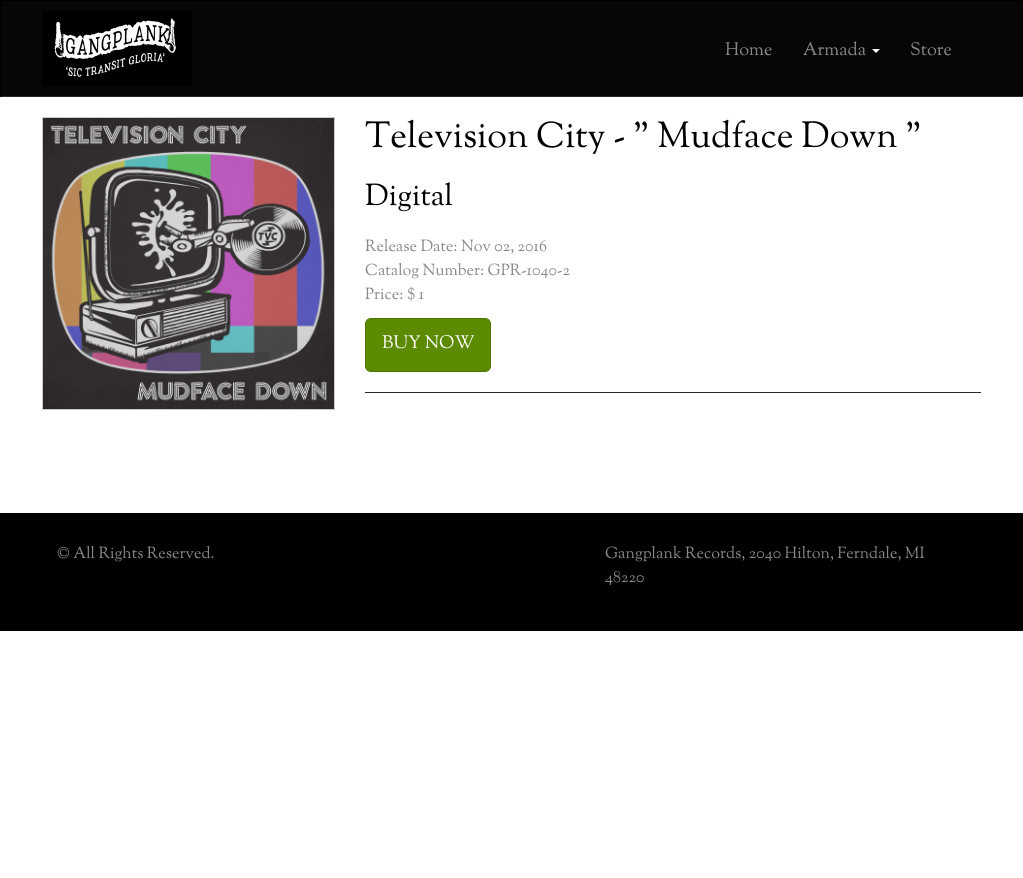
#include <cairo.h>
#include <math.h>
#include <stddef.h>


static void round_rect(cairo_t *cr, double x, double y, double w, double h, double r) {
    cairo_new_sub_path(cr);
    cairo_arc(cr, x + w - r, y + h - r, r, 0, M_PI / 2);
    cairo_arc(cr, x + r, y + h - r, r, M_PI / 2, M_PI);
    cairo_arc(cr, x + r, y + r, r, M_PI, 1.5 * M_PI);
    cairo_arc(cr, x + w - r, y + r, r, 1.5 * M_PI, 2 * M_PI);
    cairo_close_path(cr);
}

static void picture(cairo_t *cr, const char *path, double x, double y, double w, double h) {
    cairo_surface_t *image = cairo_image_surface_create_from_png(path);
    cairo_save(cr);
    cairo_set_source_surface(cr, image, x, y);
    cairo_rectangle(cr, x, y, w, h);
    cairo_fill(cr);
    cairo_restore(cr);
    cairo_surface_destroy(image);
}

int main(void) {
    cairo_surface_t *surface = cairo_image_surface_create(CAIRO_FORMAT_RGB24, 1023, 878);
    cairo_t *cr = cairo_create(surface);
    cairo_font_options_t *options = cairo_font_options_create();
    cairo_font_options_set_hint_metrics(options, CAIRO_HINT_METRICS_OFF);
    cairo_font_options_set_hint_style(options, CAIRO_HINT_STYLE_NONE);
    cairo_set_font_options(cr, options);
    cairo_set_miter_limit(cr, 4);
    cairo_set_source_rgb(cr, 1, 1, 1);
    cairo_paint(cr);
    cairo_set_source_rgb(cr, 0.024, 0.024, 0.024);
    cairo_rectangle(cr, 1, 1, 1021, 95);
    cairo_fill(cr);
    cairo_set_source_rgb(cr, 0, 0, 0);
    cairo_rectangle(cr, 0, 0, 1023, 1);
    cairo_fill(cr);
    cairo_rectangle(cr, 1022, 0, 1, 97);
    cairo_fill(cr);
    cairo_set_source_rgb(cr, 0.157, 0.157, 0.157);
    cairo_rectangle(cr, 0, 96, 1023, 1);
    cairo_fill(cr);
    cairo_set_source_rgb(cr, 0, 0, 0);
    cairo_rectangle(cr, 0, 0, 1, 97);
    cairo_fill(cr);
    picture(cr, "img1.png", 42, 11, 150, 75);
    cairo_select_font_face(cr, "Sorts Mill Goudy", CAIRO_FONT_SLANT_NORMAL, CAIRO_FONT_WEIGHT_NORMAL);
    cairo_set_font_size(cr, 18);
    cairo_set_source_rgb(cr, 0.533, 0.533, 0.533);
    cairo_move_to(cr, 725, 55);
    cairo_show_text(cr, "Home");
    cairo_move_to(cr, 803, 55);
    cairo_show_text(cr, "Armada");
    cairo_set_source_rgb(cr, 1, 1, 1);
    cairo_new_path(cr);
    cairo_move_to(cr, 872, 49);
    cairo_line_to(cr, 880, 49);
    cairo_line_to(cr, 876, 53);
    cairo_close_path(cr);
    cairo_fill(cr);
    cairo_set_source_rgb(cr, 0.533, 0.533, 0.533);
    cairo_move_to(cr, 910, 55);
    cairo_show_text(cr, "Store");
    cairo_rectangle(cr, 42.5, 117.5, 292, 292);
    cairo_set_source_rgb(cr, 0.8, 0.8, 0.8);
    cairo_set_line_width(cr, 1);
    cairo_stroke(cr);
    picture(cr, "img2.png", 43, 118, 291, 291);
    cairo_set_font_size(cr, 36);
    cairo_set_source_rgb(cr, 0, 0, 0);
    cairo_move_to(cr, 365, 147);
    cairo_show_text(cr, "Television City - \" Mudface Down \"");
    cairo_set_font_size(cr, 30);
    cairo_move_to(cr, 365, 205);
    cairo_show_text(cr, "Digital");
    cairo_set_font_size(cr, 16);
    cairo_set_source_rgb(cr, 0.533, 0.533, 0.533);
    cairo_move_to(cr, 365, 251);
    cairo_show_text(cr, "Release Date: Nov 02, 2016");
    cairo_move_to(cr, 365, 275);
    cairo_show_text(cr, "Catalog Number: GPR-1040-2");
    cairo_move_to(cr, 365, 299);
    cairo_show_text(cr, "Price: $ 1");
    cairo_set_source_rgb(cr, 0.361, 0.541, 0);
    round_rect(cr, 365.5, 318.5, 125, 53, 5.5);
    cairo_fill_preserve(cr);
    cairo_set_source_rgb(cr, 0.306, 0.463, 0);
    cairo_stroke(cr);
    cairo_set_font_size(cr, 18);
    cairo_set_source_rgb(cr, 1, 1, 1);
    cairo_move_to(cr, 382, 348);
    cairo_show_text(cr, "BUY NOW");
    cairo_set_source_rgb(cr, 0.157, 0.157, 0.157);
    cairo_rectangle(cr, 365, 392, 616, 1);
    cairo_fill(cr);
    cairo_set_source_rgb(cr, 0, 0, 0);
    cairo_rectangle(cr, 0, 513, 1023, 118);
    cairo_fill(cr);
    cairo_set_font_size(cr, 16);
    cairo_set_source_rgb(cr, 0.533, 0.533, 0.533);
    cairo_move_to(cr, 57, 558);
    cairo_show_text(cr, "© All Rights Reserved.");
    cairo_move_to(cr, 605, 558);
    cairo_show_text(cr, "Gangplank Records, 2040 Hilton, Ferndale, MI");
    cairo_move_to(cr, 605, 582);
    cairo_show_text(cr, "48220");
    cairo_surface_write_to_png(surface, "page.png");
    cairo_font_options_destroy(options);
    cairo_destroy(cr);
    cairo_surface_destroy(surface);
    return 0;
}
